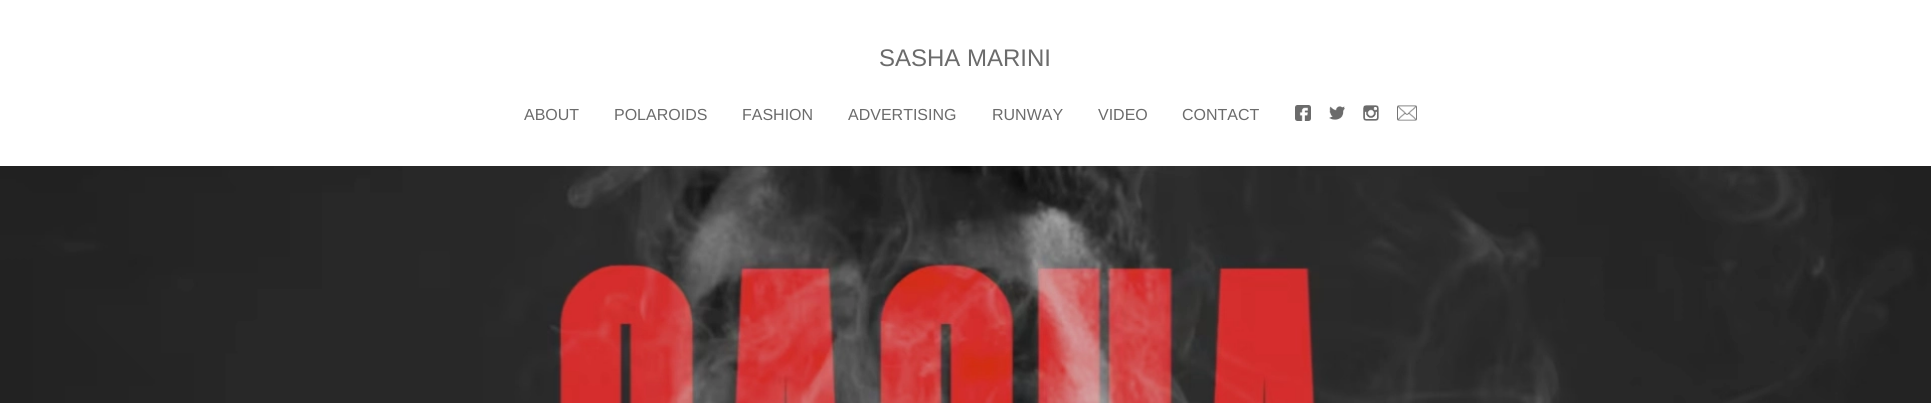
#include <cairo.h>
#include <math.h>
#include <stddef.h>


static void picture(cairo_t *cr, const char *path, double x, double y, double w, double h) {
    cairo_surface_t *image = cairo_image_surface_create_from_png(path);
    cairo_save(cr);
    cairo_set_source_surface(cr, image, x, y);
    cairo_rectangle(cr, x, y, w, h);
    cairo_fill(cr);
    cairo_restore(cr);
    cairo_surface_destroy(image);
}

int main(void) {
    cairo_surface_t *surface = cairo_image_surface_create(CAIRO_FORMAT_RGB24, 1931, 403);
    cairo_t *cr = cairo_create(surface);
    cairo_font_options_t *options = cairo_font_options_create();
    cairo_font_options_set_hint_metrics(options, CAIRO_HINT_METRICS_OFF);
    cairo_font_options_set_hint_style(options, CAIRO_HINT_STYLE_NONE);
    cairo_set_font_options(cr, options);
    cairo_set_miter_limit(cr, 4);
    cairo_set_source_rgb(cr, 1, 1, 1);
    cairo_paint(cr);
    cairo_select_font_face(cr, "Liberation Sans", CAIRO_FONT_SLANT_NORMAL, CAIRO_FONT_WEIGHT_NORMAL);
    cairo_set_font_size(cr, 24);
    cairo_set_source_rgb(cr, 0.42, 0.42, 0.42);
    cairo_move_to(cr, 879, 66);
    cairo_show_text(cr, "SASHA MARINI");
    cairo_set_font_size(cr, 16);
    cairo_move_to(cr, 524, 120);
    cairo_show_text(cr, "ABOUT");
    cairo_move_to(cr, 614, 120);
    cairo_show_text(cr, "POLAROIDS");
    cairo_move_to(cr, 742, 120);
    cairo_show_text(cr, "FASHION");
    cairo_move_to(cr, 848, 120);
    cairo_show_text(cr, "ADVERTISING");
    cairo_move_to(cr, 992, 120);
    cairo_show_text(cr, "RUNWAY");
    cairo_move_to(cr, 1098, 120);
    cairo_show_text(cr, "VIDEO");
    cairo_move_to(cr, 1182, 120);
    cairo_show_text(cr, "CONTACT");
    picture(cr, "img1.png", 1295, 105, 16, 16);
    picture(cr, "img2.png", 1329, 106, 16, 14);
    picture(cr, "img3.png", 1363, 105, 16, 16);
    picture(cr, "img4.png", 1397, 105, 20, 16);
    picture(cr, "img5.png", 0, 166, 1931, 237);
    cairo_surface_write_to_png(surface, "page.png");
    cairo_font_options_destroy(options);
    cairo_destroy(cr);
    cairo_surface_destroy(surface);
    return 0;
}
